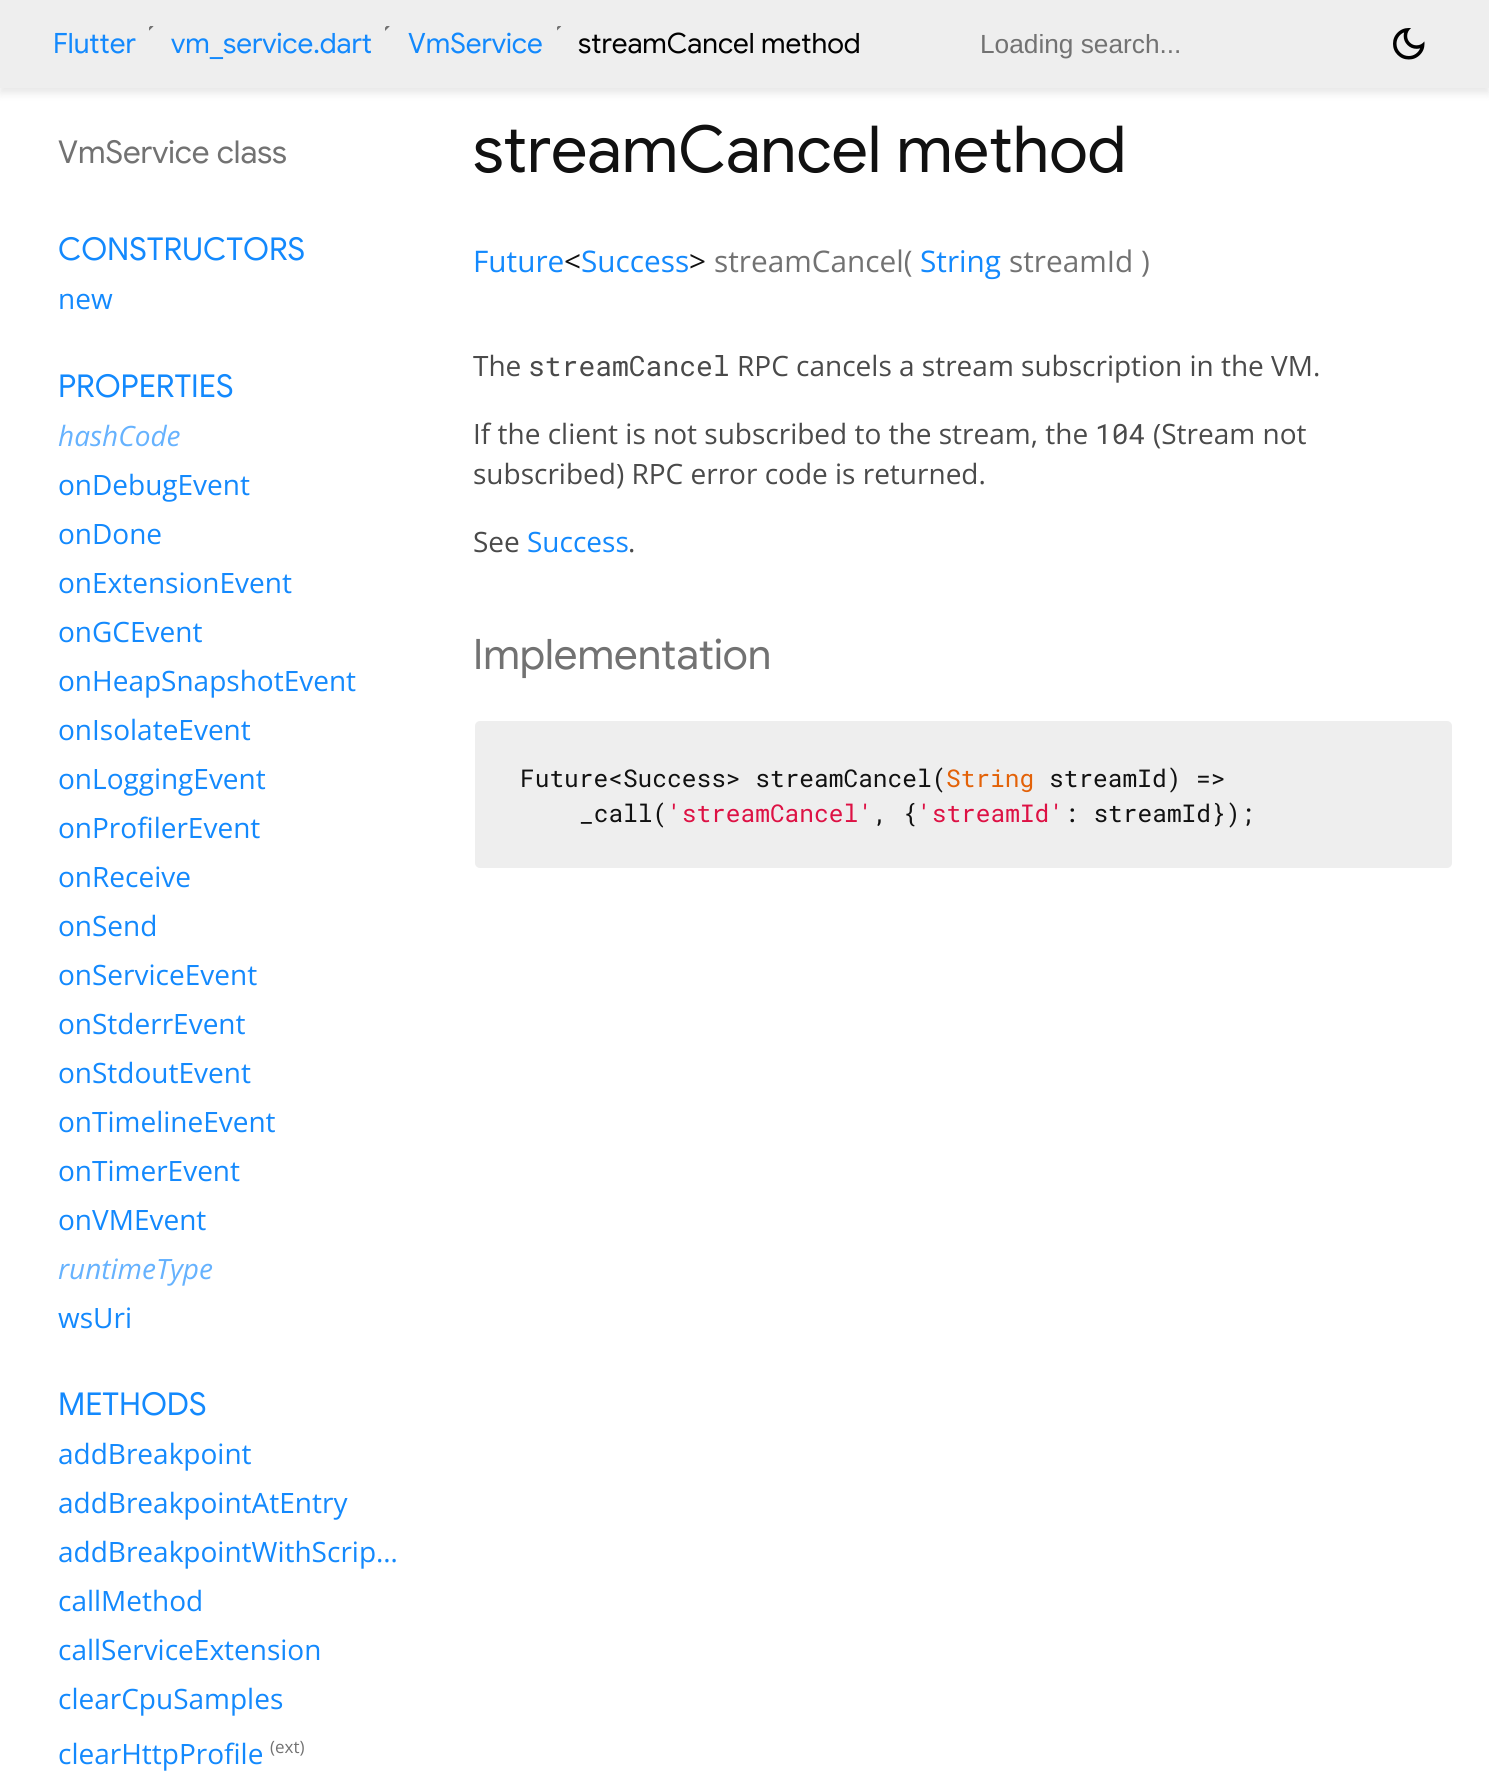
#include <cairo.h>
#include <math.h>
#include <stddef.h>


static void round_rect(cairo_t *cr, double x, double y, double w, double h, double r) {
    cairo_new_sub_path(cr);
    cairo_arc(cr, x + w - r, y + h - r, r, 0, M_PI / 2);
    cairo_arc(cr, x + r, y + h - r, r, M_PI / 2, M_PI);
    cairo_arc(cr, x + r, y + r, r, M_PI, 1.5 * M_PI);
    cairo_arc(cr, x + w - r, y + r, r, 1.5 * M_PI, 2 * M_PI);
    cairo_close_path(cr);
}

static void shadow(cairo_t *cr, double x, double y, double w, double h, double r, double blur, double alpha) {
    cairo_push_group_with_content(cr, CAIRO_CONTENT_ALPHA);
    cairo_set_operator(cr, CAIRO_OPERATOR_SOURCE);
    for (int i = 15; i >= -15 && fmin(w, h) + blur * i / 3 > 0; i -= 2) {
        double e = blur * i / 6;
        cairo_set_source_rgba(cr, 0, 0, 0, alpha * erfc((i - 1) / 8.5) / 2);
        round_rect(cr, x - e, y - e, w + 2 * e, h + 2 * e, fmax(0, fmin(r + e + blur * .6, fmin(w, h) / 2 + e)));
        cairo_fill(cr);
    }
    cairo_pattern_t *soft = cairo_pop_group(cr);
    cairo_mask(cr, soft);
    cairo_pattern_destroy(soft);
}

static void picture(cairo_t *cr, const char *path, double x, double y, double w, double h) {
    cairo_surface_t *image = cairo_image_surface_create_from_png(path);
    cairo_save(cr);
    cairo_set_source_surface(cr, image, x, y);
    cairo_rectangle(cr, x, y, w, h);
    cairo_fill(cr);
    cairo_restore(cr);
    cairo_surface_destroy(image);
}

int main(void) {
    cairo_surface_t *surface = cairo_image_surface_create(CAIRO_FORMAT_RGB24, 1489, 1777);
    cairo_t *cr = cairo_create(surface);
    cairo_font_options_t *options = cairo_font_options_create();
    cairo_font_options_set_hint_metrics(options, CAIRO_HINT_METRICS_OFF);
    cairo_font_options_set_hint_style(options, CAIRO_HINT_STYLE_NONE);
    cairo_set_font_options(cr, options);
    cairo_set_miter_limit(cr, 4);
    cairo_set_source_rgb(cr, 1, 1, 1);
    cairo_paint(cr);
    cairo_set_source_rgb(cr, 0, 0, 0);
    shadow(cr, 0, 5, 1489, 88, 0, 4.5, 0.1);
    cairo_set_source_rgb(cr, 0.933, 0.933, 0.933);
    cairo_rectangle(cr, 0, 0, 1489, 88);
    cairo_fill(cr);
    cairo_select_font_face(cr, "Google Sans", CAIRO_FONT_SLANT_NORMAL, CAIRO_FONT_WEIGHT_NORMAL);
    cairo_set_font_size(cr, 28);
    cairo_set_source_rgb(cr, 0.075, 0.537, 0.992);
    cairo_move_to(cr, 53, 53);
    cairo_show_text(cr, "Flutter");
    picture(cr, "img1.png", 149, 26, 5, 5);
    cairo_move_to(cr, 171, 53);
    cairo_show_text(cr, "vm_service.dart");
    picture(cr, "img2.png", 385, 26, 5, 5);
    cairo_move_to(cr, 408, 53);
    cairo_show_text(cr, "VmService");
    picture(cr, "img3.png", 557, 26, 5, 5);
    cairo_set_source_rgb(cr, 0, 0, 0);
    cairo_move_to(cr, 578, 53);
    cairo_show_text(cr, "streamCancel method");
    cairo_select_font_face(cr, "Liberation Sans", CAIRO_FONT_SLANT_NORMAL, CAIRO_FONT_WEIGHT_NORMAL);
    cairo_set_font_size(cr, 26.25);
    cairo_set_source_rgb(cr, 0.447, 0.447, 0.447);
    cairo_move_to(cr, 980, 53);
    cairo_show_text(cr, "Loading search...");
    picture(cr, "img4.png", 1393, 28, 32, 32);
    cairo_select_font_face(cr, "Google Sans", CAIRO_FONT_SLANT_NORMAL, CAIRO_FONT_WEIGHT_NORMAL);
    cairo_set_font_size(cr, 31.5);
    cairo_move_to(cr, 58, 163);
    cairo_show_text(cr, "VmService class");
    cairo_set_source_rgb(cr, 0.075, 0.537, 0.992);
    cairo_move_to(cr, 58, 260);
    cairo_show_text(cr, "CONSTRUCTORS");
    cairo_select_font_face(cr, "Open Sans", CAIRO_FONT_SLANT_NORMAL, CAIRO_FONT_WEIGHT_NORMAL);
    cairo_set_font_size(cr, 28);
    cairo_move_to(cr, 58, 309);
    cairo_show_text(cr, "new");
    cairo_select_font_face(cr, "Google Sans", CAIRO_FONT_SLANT_NORMAL, CAIRO_FONT_WEIGHT_NORMAL);
    cairo_set_font_size(cr, 31.5);
    cairo_move_to(cr, 58, 397);
    cairo_show_text(cr, "PROPERTIES");
    cairo_select_font_face(cr, "Open Sans", CAIRO_FONT_SLANT_ITALIC, CAIRO_FONT_WEIGHT_NORMAL);
    cairo_set_font_size(cr, 28);
    cairo_set_source_rgb(cr, 0.4, 0.698, 0.996);
    cairo_move_to(cr, 58, 446);
    cairo_show_text(cr, "hashCode");
    cairo_select_font_face(cr, "Open Sans", CAIRO_FONT_SLANT_NORMAL, CAIRO_FONT_WEIGHT_NORMAL);
    cairo_set_source_rgb(cr, 0.075, 0.537, 0.992);
    cairo_move_to(cr, 58, 495);
    cairo_show_text(cr, "onDebugEvent");
    cairo_move_to(cr, 58, 544);
    cairo_show_text(cr, "onDone");
    cairo_move_to(cr, 58, 593);
    cairo_show_text(cr, "onExtensionEvent");
    cairo_move_to(cr, 58, 642);
    cairo_show_text(cr, "onGCEvent");
    cairo_move_to(cr, 58, 691);
    cairo_show_text(cr, "onHeapSnapshotEvent");
    cairo_move_to(cr, 58, 740);
    cairo_show_text(cr, "onIsolateEvent");
    cairo_move_to(cr, 58, 789);
    cairo_show_text(cr, "onLoggingEvent");
    cairo_move_to(cr, 58, 838);
    cairo_show_text(cr, "onProfilerEvent");
    cairo_move_to(cr, 58, 887);
    cairo_show_text(cr, "onReceive");
    cairo_move_to(cr, 58, 936);
    cairo_show_text(cr, "onSend");
    cairo_move_to(cr, 58, 985);
    cairo_show_text(cr, "onServiceEvent");
    cairo_move_to(cr, 58, 1034);
    cairo_show_text(cr, "onStderrEvent");
    cairo_move_to(cr, 58, 1083);
    cairo_show_text(cr, "onStdoutEvent");
    cairo_move_to(cr, 58, 1132);
    cairo_show_text(cr, "onTimelineEvent");
    cairo_move_to(cr, 58, 1181);
    cairo_show_text(cr, "onTimerEvent");
    cairo_move_to(cr, 58, 1230);
    cairo_show_text(cr, "onVMEvent");
    cairo_select_font_face(cr, "Open Sans", CAIRO_FONT_SLANT_ITALIC, CAIRO_FONT_WEIGHT_NORMAL);
    cairo_set_source_rgb(cr, 0.4, 0.698, 0.996);
    cairo_move_to(cr, 58, 1279);
    cairo_show_text(cr, "runtimeType");
    cairo_select_font_face(cr, "Open Sans", CAIRO_FONT_SLANT_NORMAL, CAIRO_FONT_WEIGHT_NORMAL);
    cairo_set_source_rgb(cr, 0.075, 0.537, 0.992);
    cairo_move_to(cr, 58, 1328);
    cairo_show_text(cr, "wsUri");
    cairo_select_font_face(cr, "Google Sans", CAIRO_FONT_SLANT_NORMAL, CAIRO_FONT_WEIGHT_NORMAL);
    cairo_set_font_size(cr, 31.5);
    cairo_move_to(cr, 58, 1415);
    cairo_show_text(cr, "METHODS");
    cairo_select_font_face(cr, "Open Sans", CAIRO_FONT_SLANT_NORMAL, CAIRO_FONT_WEIGHT_NORMAL);
    cairo_set_font_size(cr, 28);
    cairo_move_to(cr, 58, 1464);
    cairo_show_text(cr, "addBreakpoint");
    cairo_move_to(cr, 58, 1513);
    cairo_show_text(cr, "addBreakpointAtEntry");
    cairo_move_to(cr, 58, 1562);
    cairo_show_text(cr, "addBreakpointWithScrip…");
    cairo_move_to(cr, 58, 1611);
    cairo_show_text(cr, "callMethod");
    cairo_move_to(cr, 58, 1660);
    cairo_show_text(cr, "callServiceExtension");
    cairo_move_to(cr, 58, 1709);
    cairo_show_text(cr, "clearCpuSamples");
    cairo_move_to(cr, 58, 1764);
    cairo_show_text(cr, "clearHttpProfile");
    cairo_set_font_size(cr, 17);
    cairo_set_source_rgb(cr, 0.447, 0.447, 0.447);
    cairo_move_to(cr, 270, 1753);
    cairo_show_text(cr, "(ext)");
    cairo_select_font_face(cr, "Google Sans", CAIRO_FONT_SLANT_NORMAL, CAIRO_FONT_WEIGHT_NORMAL);
    cairo_set_font_size(cr, 64.75);
    cairo_set_source_rgb(cr, 0.067, 0.067, 0.067);
    cairo_move_to(cr, 473, 172);
    cairo_show_text(cr, "streamCancel method");
    cairo_select_font_face(cr, "Open Sans", CAIRO_FONT_SLANT_NORMAL, CAIRO_FONT_WEIGHT_NORMAL);
    cairo_set_font_size(cr, 29.75);
    cairo_set_source_rgb(cr, 0.075, 0.537, 0.992);
    cairo_move_to(cr, 473, 272);
    cairo_show_text(cr, "Future");
    cairo_set_source_rgb(cr, 0.067, 0.067, 0.067);
    cairo_move_to(cr, 564, 272);
    cairo_show_text(cr, "<");
    cairo_set_source_rgb(cr, 0.075, 0.537, 0.992);
    cairo_move_to(cr, 581, 272);
    cairo_show_text(cr, "Success");
    cairo_set_source_rgb(cr, 0.067, 0.067, 0.067);
    cairo_move_to(cr, 689, 272);
    cairo_show_text(cr, ">");
    cairo_set_source_rgb(cr, 0.447, 0.447, 0.447);
    cairo_move_to(cr, 714, 272);
    cairo_show_text(cr, "streamCancel(");
    cairo_set_source_rgb(cr, 0.075, 0.537, 0.992);
    cairo_move_to(cr, 920, 272);
    cairo_show_text(cr, "String");
    cairo_set_source_rgb(cr, 0.447, 0.447, 0.447);
    cairo_move_to(cr, 1009, 272);
    cairo_show_text(cr, "streamId )");
    cairo_set_font_size(cr, 28);
    cairo_set_source_rgb(cr, 0.29, 0.29, 0.29);
    cairo_move_to(cr, 473, 376);
    cairo_show_text(cr, "The");
    cairo_select_font_face(cr, "Roboto Mono", CAIRO_FONT_SLANT_NORMAL, CAIRO_FONT_WEIGHT_NORMAL);
    cairo_move_to(cr, 528, 376);
    cairo_show_text(cr, "streamCancel");
    cairo_select_font_face(cr, "Open Sans", CAIRO_FONT_SLANT_NORMAL, CAIRO_FONT_WEIGHT_NORMAL);
    cairo_move_to(cr, 737, 376);
    cairo_show_text(cr, "RPC cancels a stream subscription in the VM.");
    cairo_move_to(cr, 473, 444);
    cairo_show_text(cr, "If the client is not subscribed to the stream, the");
    cairo_select_font_face(cr, "Roboto Mono", CAIRO_FONT_SLANT_NORMAL, CAIRO_FONT_WEIGHT_NORMAL);
    cairo_move_to(cr, 1095, 444);
    cairo_show_text(cr, "104");
    cairo_select_font_face(cr, "Open Sans", CAIRO_FONT_SLANT_NORMAL, CAIRO_FONT_WEIGHT_NORMAL);
    cairo_move_to(cr, 1153, 444);
    cairo_show_text(cr, "(Stream not");
    cairo_move_to(cr, 473, 484);
    cairo_show_text(cr, "subscribed) RPC error code is returned.");
    cairo_move_to(cr, 473, 552);
    cairo_show_text(cr, "See");
    cairo_set_source_rgb(cr, 0.075, 0.537, 0.992);
    cairo_move_to(cr, 527, 552);
    cairo_show_text(cr, "Success");
    cairo_set_source_rgb(cr, 0.29, 0.29, 0.29);
    cairo_move_to(cr, 628, 552);
    cairo_show_text(cr, ".");
    cairo_select_font_face(cr, "Google Sans", CAIRO_FONT_SLANT_NORMAL, CAIRO_FONT_WEIGHT_NORMAL);
    cairo_set_font_size(cr, 42);
    cairo_set_source_rgb(cr, 0.447, 0.447, 0.447);
    cairo_move_to(cr, 473, 669);
    cairo_show_text(cr, "Implementation");
    cairo_set_source_rgb(cr, 0.933, 0.933, 0.933);
    round_rect(cr, 474, 720, 979, 149, 6);
    cairo_fill_preserve(cr);
    cairo_set_source_rgb(cr, 1, 1, 1);
    cairo_stroke(cr);
    cairo_select_font_face(cr, "Roboto Mono", CAIRO_FONT_SLANT_NORMAL, CAIRO_FONT_WEIGHT_NORMAL);
    cairo_set_font_size(cr, 24.5);
    cairo_set_source_rgb(cr, 0.067, 0.067, 0.067);
    cairo_move_to(cr, 520, 787);
    cairo_show_text(cr, "Future<Success> streamCancel(");
    cairo_set_source_rgb(cr, 0.89, 0.384, 0.035);
    cairo_move_to(cr, 946, 787);
    cairo_show_text(cr, "String");
    cairo_set_source_rgb(cr, 0.067, 0.067, 0.067);
    cairo_move_to(cr, 1049, 787);
    cairo_show_text(cr, "streamId) =>");
    cairo_move_to(cr, 579, 822);
    cairo_show_text(cr, "_call(");
    cairo_set_source_rgb(cr, 0.867, 0.067, 0.267);
    cairo_move_to(cr, 667, 822);
    cairo_show_text(cr, "'streamCancel'");
    cairo_set_source_rgb(cr, 0.067, 0.067, 0.067);
    cairo_move_to(cr, 873, 822);
    cairo_show_text(cr, ", {");
    cairo_set_source_rgb(cr, 0.867, 0.067, 0.267);
    cairo_move_to(cr, 917, 822);
    cairo_show_text(cr, "'streamId'");
    cairo_set_source_rgb(cr, 0.067, 0.067, 0.067);
    cairo_move_to(cr, 1064, 822);
    cairo_show_text(cr, ": streamId});");
    cairo_surface_write_to_png(surface, "page.png");
    cairo_font_options_destroy(options);
    cairo_destroy(cr);
    cairo_surface_destroy(surface);
    return 0;
}
